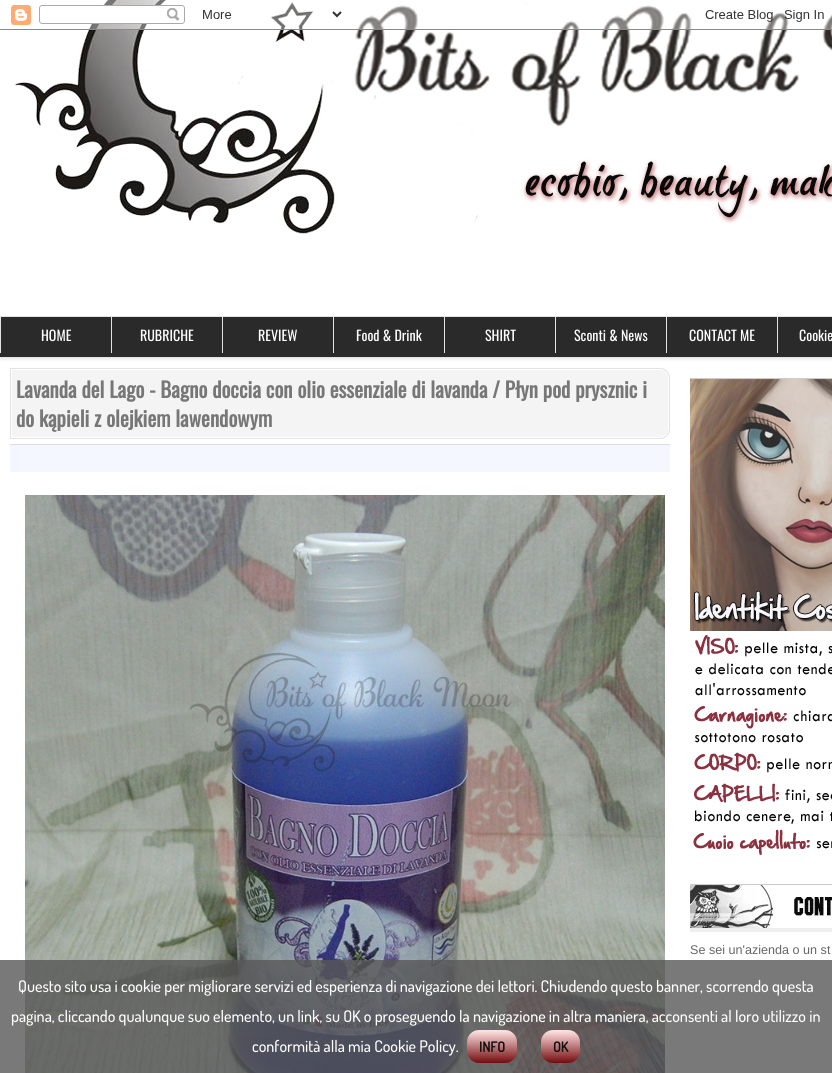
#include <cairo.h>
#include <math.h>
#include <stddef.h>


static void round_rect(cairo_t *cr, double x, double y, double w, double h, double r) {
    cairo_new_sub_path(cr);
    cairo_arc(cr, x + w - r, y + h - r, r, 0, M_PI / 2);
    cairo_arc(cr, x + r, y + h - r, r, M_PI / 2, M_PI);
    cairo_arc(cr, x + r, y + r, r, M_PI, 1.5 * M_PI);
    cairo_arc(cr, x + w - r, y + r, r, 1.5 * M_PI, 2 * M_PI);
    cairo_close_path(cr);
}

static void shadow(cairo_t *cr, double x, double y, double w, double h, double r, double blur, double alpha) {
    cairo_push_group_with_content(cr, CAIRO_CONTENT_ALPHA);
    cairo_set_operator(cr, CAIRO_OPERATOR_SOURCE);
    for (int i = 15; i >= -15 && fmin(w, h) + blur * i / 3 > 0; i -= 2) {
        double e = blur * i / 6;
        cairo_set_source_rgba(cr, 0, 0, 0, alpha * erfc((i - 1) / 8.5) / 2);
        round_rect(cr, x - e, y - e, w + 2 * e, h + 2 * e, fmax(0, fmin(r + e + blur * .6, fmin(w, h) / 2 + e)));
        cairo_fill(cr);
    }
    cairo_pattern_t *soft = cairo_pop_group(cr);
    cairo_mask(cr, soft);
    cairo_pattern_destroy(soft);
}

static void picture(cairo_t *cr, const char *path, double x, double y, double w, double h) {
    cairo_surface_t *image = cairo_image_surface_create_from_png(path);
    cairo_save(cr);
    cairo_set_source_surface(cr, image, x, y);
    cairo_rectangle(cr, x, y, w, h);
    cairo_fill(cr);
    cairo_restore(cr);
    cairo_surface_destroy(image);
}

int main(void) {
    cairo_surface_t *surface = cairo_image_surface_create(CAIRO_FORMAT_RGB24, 832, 1073);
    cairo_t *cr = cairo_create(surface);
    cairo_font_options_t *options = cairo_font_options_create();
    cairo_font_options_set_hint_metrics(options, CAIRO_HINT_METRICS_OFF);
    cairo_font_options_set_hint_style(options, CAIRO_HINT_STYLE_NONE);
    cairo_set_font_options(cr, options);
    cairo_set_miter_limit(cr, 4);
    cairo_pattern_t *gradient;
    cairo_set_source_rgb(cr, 1, 1, 1);
    cairo_paint(cr);
    picture(cr, "img1.png", 14, 0, 818, 234);
    cairo_set_source_rgb(cr, 0.933, 0.933, 0.933);
    shadow(cr, 0, 318, 832, 42, 0, 1, 1);
    cairo_set_source_rgb(cr, 0.165, 0.165, 0.165);
    cairo_rectangle(cr, 0, 317, 832, 40);
    cairo_fill(cr);
    cairo_set_source_rgb(cr, 0.894, 0.894, 0.894);
    cairo_rectangle(cr, 0, 316, 832, 1);
    cairo_fill(cr);
    cairo_rectangle(cr, 0, 357, 832, 1);
    cairo_fill(cr);
    cairo_set_source_rgb(cr, 0.89, 0.89, 0.89);
    cairo_rectangle(cr, 0, 317, 1, 36);
    cairo_fill(cr);
    cairo_select_font_face(cr, "Oswald", CAIRO_FONT_SLANT_NORMAL, CAIRO_FONT_WEIGHT_NORMAL);
    cairo_set_font_size(cr, 14);
    cairo_set_source_rgb(cr, 1, 1, 1);
    cairo_move_to(cr, 41, 341);
    cairo_show_text(cr, "HOME");
    cairo_set_source_rgb(cr, 0.89, 0.89, 0.89);
    cairo_rectangle(cr, 111, 317, 1, 36);
    cairo_fill(cr);
    cairo_set_source_rgb(cr, 1, 1, 1);
    cairo_move_to(cr, 140, 341);
    cairo_show_text(cr, "RUBRICHE");
    cairo_set_source_rgb(cr, 0.89, 0.89, 0.89);
    cairo_rectangle(cr, 222, 317, 1, 36);
    cairo_fill(cr);
    cairo_set_source_rgb(cr, 1, 1, 1);
    cairo_move_to(cr, 258, 341);
    cairo_show_text(cr, "REVIEW");
    cairo_set_source_rgb(cr, 0.89, 0.89, 0.89);
    cairo_rectangle(cr, 333, 317, 1, 36);
    cairo_fill(cr);
    cairo_set_source_rgb(cr, 1, 1, 1);
    cairo_move_to(cr, 356, 341);
    cairo_show_text(cr, "Food & Drink");
    cairo_set_source_rgb(cr, 0.89, 0.89, 0.89);
    cairo_rectangle(cr, 444, 317, 1, 36);
    cairo_fill(cr);
    cairo_set_source_rgb(cr, 1, 1, 1);
    cairo_move_to(cr, 485, 341);
    cairo_show_text(cr, "SHIRT");
    cairo_set_source_rgb(cr, 0.89, 0.89, 0.89);
    cairo_rectangle(cr, 555, 317, 1, 36);
    cairo_fill(cr);
    cairo_set_source_rgb(cr, 1, 1, 1);
    cairo_move_to(cr, 574, 341);
    cairo_show_text(cr, "Sconti & News");
    cairo_set_source_rgb(cr, 0.89, 0.89, 0.89);
    cairo_rectangle(cr, 666, 317, 1, 36);
    cairo_fill(cr);
    cairo_set_source_rgb(cr, 1, 1, 1);
    cairo_move_to(cr, 689, 341);
    cairo_show_text(cr, "CONTACT ME");
    cairo_set_source_rgb(cr, 0.89, 0.89, 0.89);
    cairo_rectangle(cr, 777, 317, 1, 36);
    cairo_fill(cr);
    cairo_set_source_rgb(cr, 1, 1, 1);
    cairo_move_to(cr, 799, 341);
    cairo_show_text(cr, "Cookie");
    cairo_set_source_rgb(cr, 0.957, 0.957, 0.957);
    cairo_new_path(cr);
    cairo_move_to(cr, 10, 368);
    cairo_line_to(cr, 660, 368);
    cairo_curve_to(cr, 665.5, 368, 670, 372.5, 670, 378);
    cairo_line_to(cr, 670, 429);
    cairo_curve_to(cr, 670, 434.5, 665.5, 439, 660, 439);
    cairo_line_to(cr, 10, 439);
    cairo_close_path(cr);
    cairo_fill(cr);
    cairo_new_path(cr);
    cairo_move_to(cr, 11.5, 369.5);
    cairo_line_to(cr, 660, 369.5);
    cairo_curve_to(cr, 664.5, 369.5, 668.5, 373.5, 668.5, 378);
    cairo_line_to(cr, 668.5, 429);
    cairo_curve_to(cr, 668.5, 433.5, 664.5, 437.5, 660, 437.5);
    cairo_line_to(cr, 11.5, 437.5);
    cairo_close_path(cr);
    cairo_set_source_rgb(cr, 1, 1, 1);
    cairo_set_line_width(cr, 1);
    cairo_stroke(cr);
    cairo_new_path(cr);
    cairo_move_to(cr, 10.5, 368.5);
    cairo_line_to(cr, 660, 368.5);
    cairo_curve_to(cr, 665, 368.5, 669.5, 373, 669.5, 378);
    cairo_line_to(cr, 669.5, 429);
    cairo_curve_to(cr, 669.5, 434, 665, 438.5, 660, 438.5);
    cairo_line_to(cr, 10.5, 438.5);
    cairo_close_path(cr);
    cairo_set_source_rgb(cr, 0.89, 0.89, 0.89);
    cairo_stroke(cr);
    cairo_select_font_face(cr, "Oswald", CAIRO_FONT_SLANT_NORMAL, CAIRO_FONT_WEIGHT_BOLD);
    cairo_set_font_size(cr, 21);
    cairo_set_source_rgb(cr, 0.467, 0.467, 0.467);
    cairo_move_to(cr, 16, 398);
    cairo_show_text(cr, "Lavanda del Lago - Bagno doccia con olio essenziale di lavanda / Płyn pod prysznic i");
    cairo_move_to(cr, 16, 427);
    cairo_show_text(cr, "do kąpieli z olejkiem lawendowym");
    cairo_set_source_rgb(cr, 0.957, 0.965, 1);
    cairo_rectangle(cr, 10, 445, 660, 27);
    cairo_fill(cr);
    cairo_set_source_rgb(cr, 0.867, 0.867, 0.867);
    cairo_rectangle(cr, 10, 444, 660, 1);
    cairo_fill(cr);
    picture(cr, "img2.png", 25, 495, 640, 578);
    picture(cr, "img3.png", 0, 0, 832, 30);
    cairo_set_source_rgb(cr, 0.8, 0.8, 0.8);
    cairo_rectangle(cr, 690, 378, 142, 1);
    cairo_fill(cr);
    picture(cr, "img4.png", 690, 379, 142, 476);
    cairo_rectangle(cr, 690, 884, 142, 1);
    cairo_fill(cr);
    cairo_set_source_rgb(cr, 0.933, 0.933, 0.933);
    cairo_rectangle(cr, 690, 928, 142, 4);
    cairo_fill(cr);
    picture(cr, "img5.png", 690, 885, 142, 43);
    cairo_select_font_face(cr, "Liberation Sans", CAIRO_FONT_SLANT_NORMAL, CAIRO_FONT_WEIGHT_NORMAL);
    cairo_set_font_size(cr, 12.6);
    cairo_set_source_rgb(cr, 0.4, 0.4, 0.4);
    cairo_move_to(cr, 690, 954);
    cairo_show_text(cr, "Se sei un'azienda o un st");
    cairo_set_source_rgba(cr, 0.345, 0.345, 0.345, 0.8);
    cairo_rectangle(cr, 0, 960, 832, 113);
    cairo_fill(cr);
    cairo_select_font_face(cr, "Dosis Medium", CAIRO_FONT_SLANT_NORMAL, CAIRO_FONT_WEIGHT_NORMAL);
    cairo_set_font_size(cr, 16);
    cairo_set_source_rgb(cr, 1, 1, 1);
    cairo_move_to(cr, 18, 992);
    cairo_show_text(cr, "Questo sito usa i cookie per migliorare servizi ed esperienza di navigazione dei lettori. Chiudendo questo banner, scorrendo questa");
    cairo_move_to(cr, 11, 1022);
    cairo_show_text(cr, "pagina, cliccando qualunque suo elemento, un link, su OK o proseguendo la navigazione in altra maniera, acconsenti al loro utilizzo in");
    cairo_move_to(cr, 252, 1052);
    cairo_show_text(cr, "conformità alla mia Cookie Policy.");
    gradient = cairo_pattern_create_linear(492, 1030, 492, 1063);
    cairo_pattern_add_color_stop_rgba(gradient, 0.04, 0.996, 0.871, 0.871, 1);
    cairo_pattern_add_color_stop_rgba(gradient, 1, 0.455, 0.043, 0.055, 1);
    cairo_set_source(cr, gradient);
    cairo_pattern_destroy(gradient);
    round_rect(cr, 467, 1030, 50, 33, 12);
    cairo_fill(cr);
    cairo_select_font_face(cr, "Dosis", CAIRO_FONT_SLANT_NORMAL, CAIRO_FONT_WEIGHT_BOLD);
    cairo_set_font_size(cr, 14);
    cairo_set_source_rgb(cr, 0.067, 0.071, 0.071);
    cairo_move_to(cr, 479, 1052);
    cairo_show_text(cr, "INFO");
    gradient = cairo_pattern_create_linear(561, 1030, 561, 1063);
    cairo_pattern_add_color_stop_rgba(gradient, 0.04, 0.996, 0.871, 0.871, 1);
    cairo_pattern_add_color_stop_rgba(gradient, 1, 0.455, 0.043, 0.055, 1);
    cairo_set_source(cr, gradient);
    cairo_pattern_destroy(gradient);
    round_rect(cr, 541, 1030, 39, 33, 12);
    cairo_fill(cr);
    cairo_set_source_rgb(cr, 0.067, 0.071, 0.071);
    cairo_move_to(cr, 553, 1052);
    cairo_show_text(cr, "OK");
    cairo_surface_write_to_png(surface, "page.png");
    cairo_font_options_destroy(options);
    cairo_destroy(cr);
    cairo_surface_destroy(surface);
    return 0;
}
